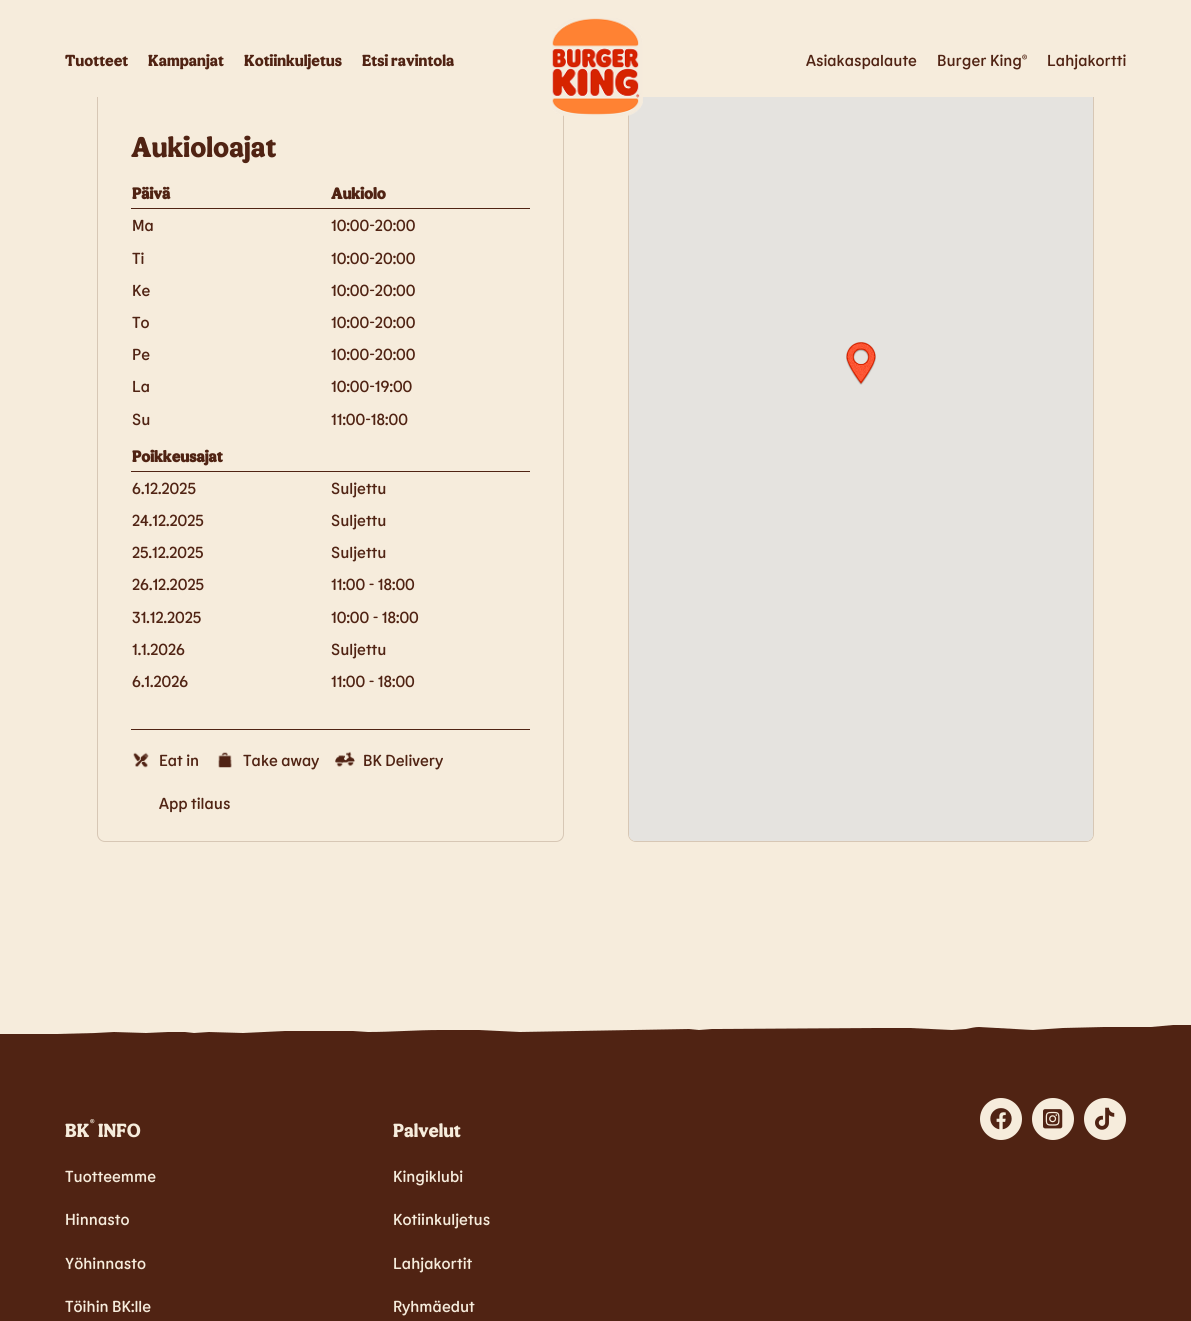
#include <cairo.h>
#include <math.h>
#include <stddef.h>


static void round_rect(cairo_t *cr, double x, double y, double w, double h, double r) {
    cairo_new_sub_path(cr);
    cairo_arc(cr, x + w - r, y + h - r, r, 0, M_PI / 2);
    cairo_arc(cr, x + r, y + h - r, r, M_PI / 2, M_PI);
    cairo_arc(cr, x + r, y + r, r, M_PI, 1.5 * M_PI);
    cairo_arc(cr, x + w - r, y + r, r, 1.5 * M_PI, 2 * M_PI);
    cairo_close_path(cr);
}

static void picture(cairo_t *cr, const char *path, double x, double y, double w, double h) {
    cairo_surface_t *image = cairo_image_surface_create_from_png(path);
    cairo_save(cr);
    cairo_set_source_surface(cr, image, x, y);
    cairo_rectangle(cr, x, y, w, h);
    cairo_fill(cr);
    cairo_restore(cr);
    cairo_surface_destroy(image);
}

int main(void) {
    cairo_surface_t *surface = cairo_image_surface_create(CAIRO_FORMAT_RGB24, 1191, 1321);
    cairo_t *cr = cairo_create(surface);
    cairo_font_options_t *options = cairo_font_options_create();
    cairo_font_options_set_hint_metrics(options, CAIRO_HINT_METRICS_OFF);
    cairo_font_options_set_hint_style(options, CAIRO_HINT_STYLE_NONE);
    cairo_set_font_options(cr, options);
    cairo_set_miter_limit(cr, 4);
    cairo_set_source_rgb(cr, 0.961, 0.922, 0.863);
    cairo_paint(cr);
    round_rect(cr, 97.5, -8.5, 466, 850, 7.5);
    cairo_set_source_rgb(cr, 0.843, 0.78, 0.71);
    cairo_set_line_width(cr, 1);
    cairo_stroke(cr);
    round_rect(cr, 628.5, -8.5, 465, 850, 7.5);
    cairo_stroke(cr);
    cairo_set_source_rgb(cr, 0.898, 0.89, 0.875);
    round_rect(cr, 629, -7, 464, 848, 7);
    cairo_fill(cr);
    picture(cr, "img5.png", 846, 342, 30, 43);
    cairo_set_fill_rule(cr, CAIRO_FILL_RULE_EVEN_ODD);
    cairo_new_path(cr);
    cairo_move_to(cr, 629, -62);
    cairo_line_to(cr, 629, 834);
    cairo_curve_to(cr, 629, 836, 630, 838, 631, 839);
    cairo_line_to(cr, 631, -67);
    cairo_curve_to(cr, 630, -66, 629, -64, 629, -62);
    cairo_close_path(cr);
    cairo_move_to(cr, 636, -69);
    cairo_curve_to(cr, 634, -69, 632, -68, 631, -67);
    cairo_line_to(cr, 1091, -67);
    cairo_curve_to(cr, 1090, -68, 1088, -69, 1086, -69);
    cairo_close_path(cr);
    cairo_move_to(cr, 1093, -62);
    cairo_curve_to(cr, 1093, -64, 1092, -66, 1091, -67);
    cairo_line_to(cr, 1091, 839);
    cairo_curve_to(cr, 1092, 838, 1093, 836, 1093, 834);
    cairo_close_path(cr);
    cairo_move_to(cr, 1086, 841);
    cairo_curve_to(cr, 1088, 841, 1090, 840, 1091, 839);
    cairo_line_to(cr, 631, 839);
    cairo_curve_to(cr, 632, 840, 634, 841, 636, 841);
    cairo_close_path(cr);
    cairo_fill(cr);
    cairo_set_source_rgb(cr, 0.961, 0.922, 0.863);
    cairo_rectangle(cr, 97, 0, 997, 97);
    cairo_fill(cr);
    cairo_select_font_face(cr, "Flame", CAIRO_FONT_SLANT_NORMAL, CAIRO_FONT_WEIGHT_NORMAL);
    cairo_set_font_size(cr, 16);
    cairo_set_source_rgb(cr, 0.314, 0.137, 0.078);
    cairo_move_to(cr, 65, 66);
    cairo_show_text(cr, "Tuotteet");
    cairo_move_to(cr, 148, 66);
    cairo_show_text(cr, "Kampanjat");
    cairo_move_to(cr, 244, 66);
    cairo_show_text(cr, "Kotiinkuljetus");
    cairo_move_to(cr, 362, 66);
    cairo_show_text(cr, "Etsi ravintola");
    picture(cr, "img1.png", 552, 18, 91, 98);
    cairo_select_font_face(cr, "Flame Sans", CAIRO_FONT_SLANT_NORMAL, CAIRO_FONT_WEIGHT_NORMAL);
    cairo_move_to(cr, 806, 66);
    cairo_show_text(cr, "Asiakaspalaute");
    cairo_move_to(cr, 937, 66);
    cairo_show_text(cr, "Burger King®");
    cairo_move_to(cr, 1047, 66);
    cairo_show_text(cr, "Lahjakortti");
    cairo_select_font_face(cr, "Flame", CAIRO_FONT_SLANT_NORMAL, CAIRO_FONT_WEIGHT_NORMAL);
    cairo_set_font_size(cr, 28.75);
    cairo_move_to(cr, 131, 157);
    cairo_show_text(cr, "Aukioloajat");
    cairo_select_font_face(cr, "Flame", CAIRO_FONT_SLANT_NORMAL, CAIRO_FONT_WEIGHT_BOLD);
    cairo_set_font_size(cr, 16);
    cairo_move_to(cr, 132, 199);
    cairo_show_text(cr, "Päivä");
    cairo_rectangle(cr, 131, 208, 399, 1);
    cairo_fill(cr);
    cairo_move_to(cr, 331, 199);
    cairo_show_text(cr, "Aukiolo");
    cairo_select_font_face(cr, "Flame Sans", CAIRO_FONT_SLANT_NORMAL, CAIRO_FONT_WEIGHT_NORMAL);
    cairo_move_to(cr, 132, 231);
    cairo_show_text(cr, "Ma");
    cairo_move_to(cr, 331, 231);
    cairo_show_text(cr, "10:00-20:00");
    cairo_move_to(cr, 132, 264);
    cairo_show_text(cr, "Ti");
    cairo_move_to(cr, 331, 264);
    cairo_show_text(cr, "10:00-20:00");
    cairo_move_to(cr, 132, 296);
    cairo_show_text(cr, "Ke");
    cairo_move_to(cr, 331, 296);
    cairo_show_text(cr, "10:00-20:00");
    cairo_move_to(cr, 132, 328);
    cairo_show_text(cr, "To");
    cairo_move_to(cr, 331, 328);
    cairo_show_text(cr, "10:00-20:00");
    cairo_move_to(cr, 132, 360);
    cairo_show_text(cr, "Pe");
    cairo_move_to(cr, 331, 360);
    cairo_show_text(cr, "10:00-20:00");
    cairo_move_to(cr, 132, 392);
    cairo_show_text(cr, "La");
    cairo_move_to(cr, 331, 392);
    cairo_show_text(cr, "10:00-19:00");
    cairo_move_to(cr, 132, 425);
    cairo_show_text(cr, "Su");
    cairo_move_to(cr, 331, 425);
    cairo_show_text(cr, "11:00-18:00");
    cairo_select_font_face(cr, "Flame", CAIRO_FONT_SLANT_NORMAL, CAIRO_FONT_WEIGHT_BOLD);
    cairo_move_to(cr, 132, 462);
    cairo_show_text(cr, "Poikkeusajat");
    cairo_rectangle(cr, 131, 471, 399, 1);
    cairo_fill(cr);
    cairo_select_font_face(cr, "Flame Sans", CAIRO_FONT_SLANT_NORMAL, CAIRO_FONT_WEIGHT_NORMAL);
    cairo_move_to(cr, 132, 494);
    cairo_show_text(cr, "6.12.2025");
    cairo_move_to(cr, 331, 494);
    cairo_show_text(cr, "Suljettu");
    cairo_move_to(cr, 132, 526);
    cairo_show_text(cr, "24.12.2025");
    cairo_move_to(cr, 331, 526);
    cairo_show_text(cr, "Suljettu");
    cairo_move_to(cr, 132, 558);
    cairo_show_text(cr, "25.12.2025");
    cairo_move_to(cr, 331, 558);
    cairo_show_text(cr, "Suljettu");
    cairo_move_to(cr, 132, 590);
    cairo_show_text(cr, "26.12.2025");
    cairo_move_to(cr, 331, 590);
    cairo_show_text(cr, "11:00 - 18:00");
    cairo_move_to(cr, 132, 623);
    cairo_show_text(cr, "31.12.2025");
    cairo_move_to(cr, 331, 623);
    cairo_show_text(cr, "10:00 - 18:00");
    cairo_move_to(cr, 132, 655);
    cairo_show_text(cr, "1.1.2026");
    cairo_move_to(cr, 331, 655);
    cairo_show_text(cr, "Suljettu");
    cairo_move_to(cr, 132, 687);
    cairo_show_text(cr, "6.1.2026");
    cairo_move_to(cr, 331, 687);
    cairo_show_text(cr, "11:00 - 18:00");
    cairo_rectangle(cr, 131, 729, 399, 1);
    cairo_fill(cr);
    picture(cr, "img2.png", 133, 752, 16, 16);
    cairo_move_to(cr, 159, 766);
    cairo_show_text(cr, "Eat in");
    picture(cr, "img3.png", 218, 752, 14, 16);
    cairo_move_to(cr, 243, 766);
    cairo_show_text(cr, "Take away");
    picture(cr, "img4.png", 335, 751, 20, 16);
    cairo_move_to(cr, 363, 766);
    cairo_show_text(cr, "BK Delivery");
    cairo_move_to(cr, 159, 809);
    cairo_show_text(cr, "App tilaus");
    cairo_rectangle(cr, 0, 1036, 1191, 285);
    cairo_fill(cr);
    cairo_new_path(cr);
    cairo_move_to(cr, 0, 1036);
    cairo_line_to(cr, 0, 1034);
    cairo_line_to(cr, 56, 1034);
    cairo_line_to(cr, 95, 1033);
    cairo_line_to(cr, 114, 1032);
    cairo_line_to(cr, 146, 1033);
    cairo_line_to(cr, 168, 1032);
    cairo_line_to(cr, 185, 1032);
    cairo_line_to(cr, 194, 1033);
    cairo_line_to(cr, 209, 1032);
    cairo_line_to(cr, 243, 1033);
    cairo_line_to(cr, 285, 1031);
    cairo_line_to(cr, 353, 1031);
    cairo_line_to(cr, 368, 1032);
    cairo_curve_to(cr, 392, 1032, 416, 1030, 440, 1030);
    cairo_line_to(cr, 479, 1030);
    cairo_line_to(cr, 520, 1032);
    cairo_line_to(cr, 689, 1029);
    cairo_line_to(cr, 699, 1030);
    cairo_line_to(cr, 712, 1029);
    cairo_line_to(cr, 872, 1028);
    cairo_line_to(cr, 910, 1028);
    cairo_line_to(cr, 952, 1030);
    cairo_line_to(cr, 966, 1029);
    cairo_curve_to(cr, 971, 1028, 975, 1027, 979, 1027);
    cairo_line_to(cr, 1033, 1030);
    cairo_line_to(cr, 1063, 1028);
    cairo_line_to(cr, 1104, 1027);
    cairo_line_to(cr, 1151, 1027);
    cairo_line_to(cr, 1173, 1025);
    cairo_line_to(cr, 1191, 1025);
    cairo_line_to(cr, 1191, 1036);
    cairo_close_path(cr);
    cairo_fill(cr);
    cairo_select_font_face(cr, "Flame", CAIRO_FONT_SLANT_NORMAL, CAIRO_FONT_WEIGHT_NORMAL);
    cairo_set_font_size(cr, 14);
    cairo_set_source_rgb(cr, 0.961, 0.922, 0.863);
    cairo_move_to(cr, 90, 1129);
    cairo_show_text(cr, "®");
    cairo_set_font_size(cr, 19);
    cairo_move_to(cr, 65, 1137);
    cairo_show_text(cr, "BK");
    cairo_move_to(cr, 98, 1137);
    cairo_show_text(cr, "INFO");
    cairo_select_font_face(cr, "Flame Sans", CAIRO_FONT_SLANT_NORMAL, CAIRO_FONT_WEIGHT_NORMAL);
    cairo_set_font_size(cr, 16);
    cairo_move_to(cr, 65, 1182);
    cairo_show_text(cr, "Tuotteemme");
    cairo_move_to(cr, 65, 1225);
    cairo_show_text(cr, "Hinnasto");
    cairo_move_to(cr, 65, 1269);
    cairo_show_text(cr, "Yöhinnasto");
    cairo_move_to(cr, 65, 1312);
    cairo_show_text(cr, "Töihin BK:lle");
    cairo_select_font_face(cr, "Flame", CAIRO_FONT_SLANT_NORMAL, CAIRO_FONT_WEIGHT_NORMAL);
    cairo_set_font_size(cr, 19);
    cairo_move_to(cr, 393, 1137);
    cairo_show_text(cr, "Palvelut");
    cairo_select_font_face(cr, "Flame Sans", CAIRO_FONT_SLANT_NORMAL, CAIRO_FONT_WEIGHT_NORMAL);
    cairo_set_font_size(cr, 16);
    cairo_move_to(cr, 393, 1182);
    cairo_show_text(cr, "Kingiklubi");
    cairo_move_to(cr, 393, 1225);
    cairo_show_text(cr, "Kotiinkuljetus");
    cairo_move_to(cr, 393, 1269);
    cairo_show_text(cr, "Lahjakortit");
    cairo_move_to(cr, 393, 1312);
    cairo_show_text(cr, "Ryhmäedut");
    cairo_new_path(cr);
    cairo_arc(cr, 1001, 1119, 21, 0, 2 * M_PI);
    cairo_fill(cr);
    picture(cr, "img6.png", 990, 1108, 22, 22);
    cairo_arc(cr, 1053, 1119, 21, 0, 2 * M_PI);
    cairo_fill(cr);
    picture(cr, "img7.png", 1043, 1109, 20, 20);
    cairo_arc(cr, 1105, 1119, 21, 0, 2 * M_PI);
    cairo_fill(cr);
    picture(cr, "img8.png", 1095, 1107, 20, 23);
    cairo_surface_write_to_png(surface, "page.png");
    cairo_font_options_destroy(options);
    cairo_destroy(cr);
    cairo_surface_destroy(surface);
    return 0;
}
